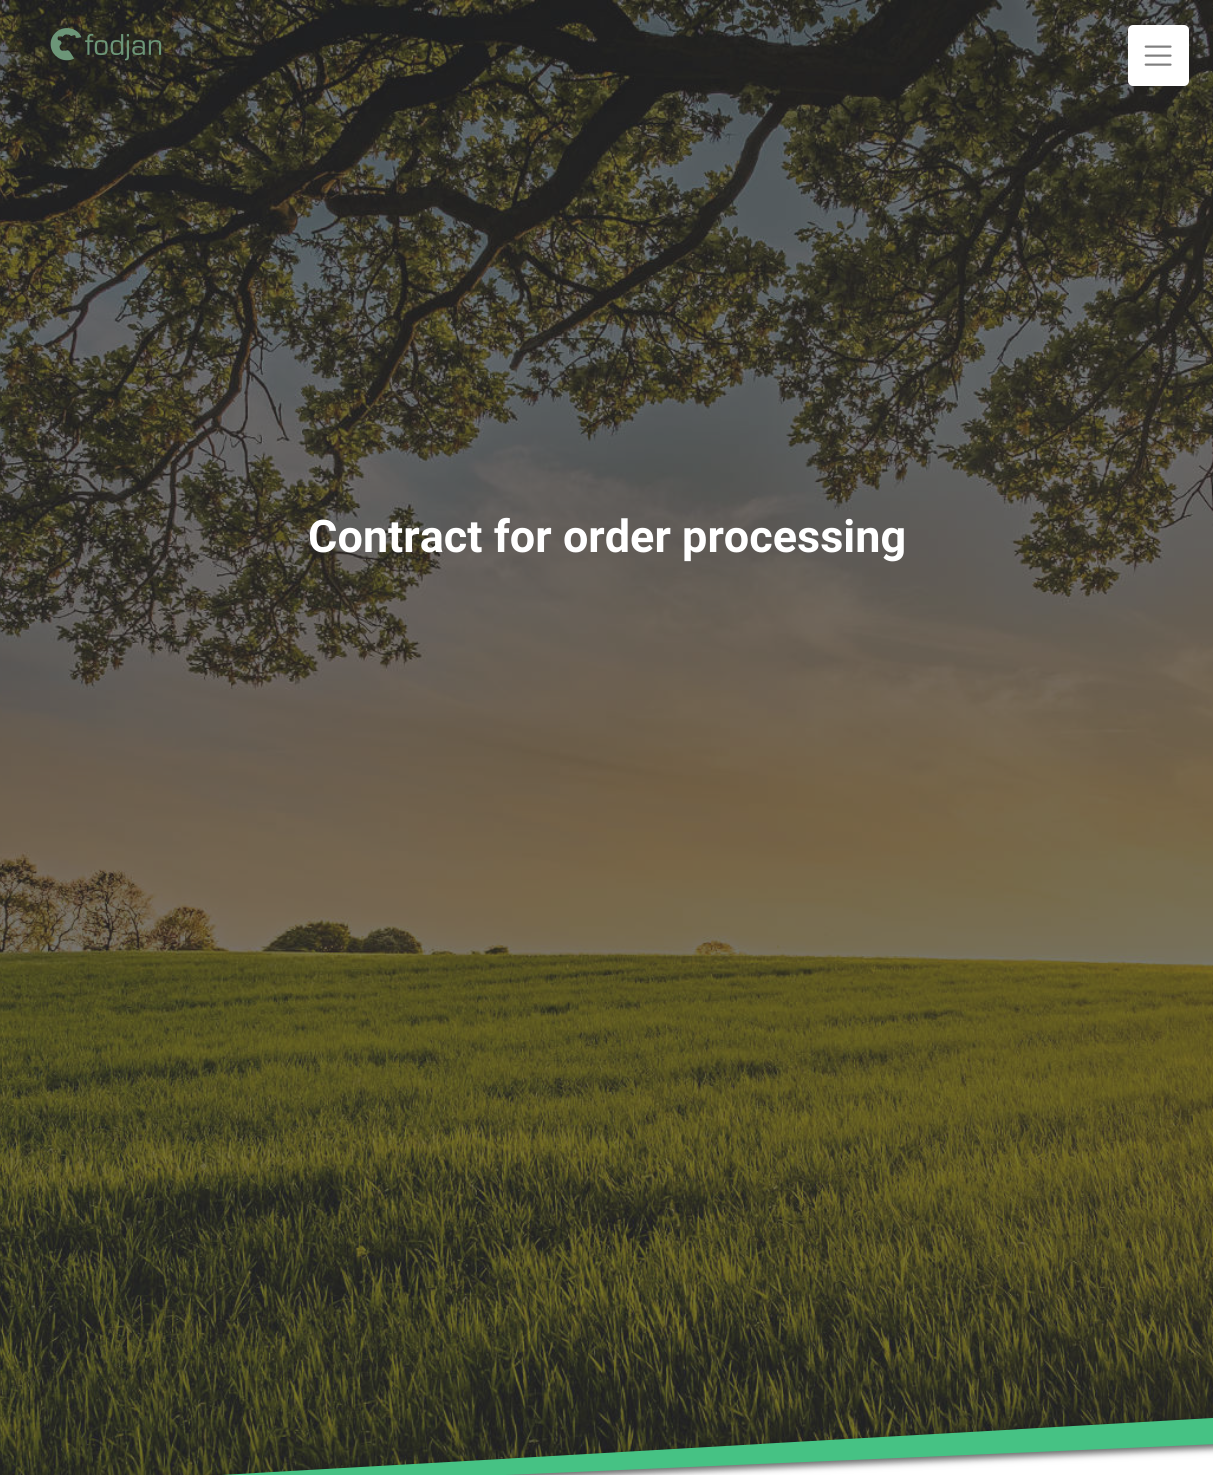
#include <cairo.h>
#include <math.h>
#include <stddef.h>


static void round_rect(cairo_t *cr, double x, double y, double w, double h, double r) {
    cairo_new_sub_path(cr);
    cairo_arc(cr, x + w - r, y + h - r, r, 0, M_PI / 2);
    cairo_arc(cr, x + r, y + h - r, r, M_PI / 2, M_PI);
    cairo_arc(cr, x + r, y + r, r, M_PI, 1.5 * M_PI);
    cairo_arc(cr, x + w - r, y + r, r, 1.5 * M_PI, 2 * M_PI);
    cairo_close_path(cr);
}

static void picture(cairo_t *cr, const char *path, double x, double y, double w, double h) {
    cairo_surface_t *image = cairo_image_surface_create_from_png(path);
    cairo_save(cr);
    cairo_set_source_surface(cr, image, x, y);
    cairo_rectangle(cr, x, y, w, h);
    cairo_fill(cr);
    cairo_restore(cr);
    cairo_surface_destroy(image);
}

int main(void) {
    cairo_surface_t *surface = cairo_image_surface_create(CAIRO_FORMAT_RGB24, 1213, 1475);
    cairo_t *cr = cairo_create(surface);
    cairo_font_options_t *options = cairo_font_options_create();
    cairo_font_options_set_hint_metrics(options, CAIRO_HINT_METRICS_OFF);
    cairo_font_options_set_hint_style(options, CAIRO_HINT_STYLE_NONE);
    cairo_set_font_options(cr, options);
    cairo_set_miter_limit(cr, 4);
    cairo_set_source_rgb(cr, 1, 1, 1);
    cairo_paint(cr);
    picture(cr, "img1.png", 0, 0, 1213, 1475);
    cairo_set_source_rgba(cr, 0.18, 0.18, 0.18, 0.65);
    cairo_rectangle(cr, 0, 0, 1213, 111);
    cairo_fill(cr);
    picture(cr, "img2.png", 50, 28, 112, 33);
    cairo_set_source_rgb(cr, 1, 1, 1);
    round_rect(cr, 1128, 25, 61, 61, 5);
    cairo_fill(cr);
    picture(cr, "img3.png", 1144, 45, 28, 21);
    cairo_select_font_face(cr, "Roboto", CAIRO_FONT_SLANT_NORMAL, CAIRO_FONT_WEIGHT_BOLD);
    cairo_set_font_size(cr, 45);
    cairo_move_to(cr, 308, 552);
    cairo_show_text(cr, "Contract for order processing");
    picture(cr, "img4.png", 196, 1418, 1017, 57);
    cairo_surface_write_to_png(surface, "page.png");
    cairo_font_options_destroy(options);
    cairo_destroy(cr);
    cairo_surface_destroy(surface);
    return 0;
}
